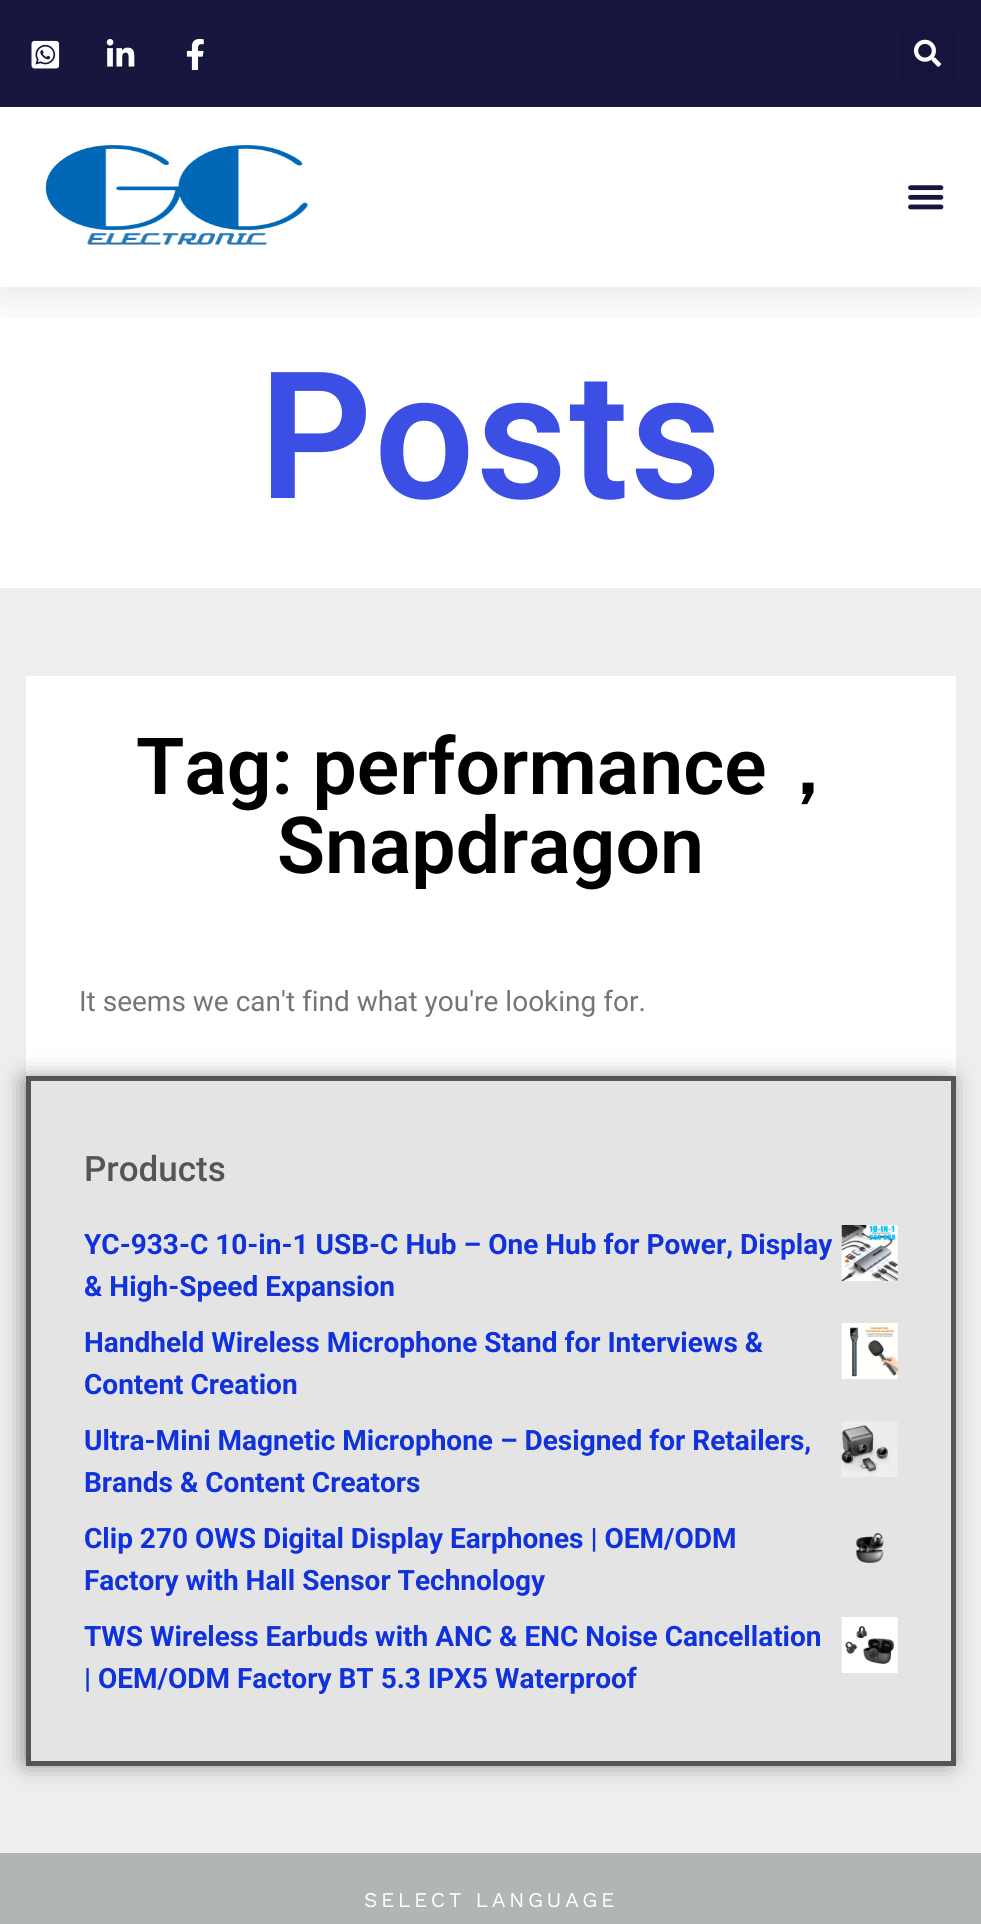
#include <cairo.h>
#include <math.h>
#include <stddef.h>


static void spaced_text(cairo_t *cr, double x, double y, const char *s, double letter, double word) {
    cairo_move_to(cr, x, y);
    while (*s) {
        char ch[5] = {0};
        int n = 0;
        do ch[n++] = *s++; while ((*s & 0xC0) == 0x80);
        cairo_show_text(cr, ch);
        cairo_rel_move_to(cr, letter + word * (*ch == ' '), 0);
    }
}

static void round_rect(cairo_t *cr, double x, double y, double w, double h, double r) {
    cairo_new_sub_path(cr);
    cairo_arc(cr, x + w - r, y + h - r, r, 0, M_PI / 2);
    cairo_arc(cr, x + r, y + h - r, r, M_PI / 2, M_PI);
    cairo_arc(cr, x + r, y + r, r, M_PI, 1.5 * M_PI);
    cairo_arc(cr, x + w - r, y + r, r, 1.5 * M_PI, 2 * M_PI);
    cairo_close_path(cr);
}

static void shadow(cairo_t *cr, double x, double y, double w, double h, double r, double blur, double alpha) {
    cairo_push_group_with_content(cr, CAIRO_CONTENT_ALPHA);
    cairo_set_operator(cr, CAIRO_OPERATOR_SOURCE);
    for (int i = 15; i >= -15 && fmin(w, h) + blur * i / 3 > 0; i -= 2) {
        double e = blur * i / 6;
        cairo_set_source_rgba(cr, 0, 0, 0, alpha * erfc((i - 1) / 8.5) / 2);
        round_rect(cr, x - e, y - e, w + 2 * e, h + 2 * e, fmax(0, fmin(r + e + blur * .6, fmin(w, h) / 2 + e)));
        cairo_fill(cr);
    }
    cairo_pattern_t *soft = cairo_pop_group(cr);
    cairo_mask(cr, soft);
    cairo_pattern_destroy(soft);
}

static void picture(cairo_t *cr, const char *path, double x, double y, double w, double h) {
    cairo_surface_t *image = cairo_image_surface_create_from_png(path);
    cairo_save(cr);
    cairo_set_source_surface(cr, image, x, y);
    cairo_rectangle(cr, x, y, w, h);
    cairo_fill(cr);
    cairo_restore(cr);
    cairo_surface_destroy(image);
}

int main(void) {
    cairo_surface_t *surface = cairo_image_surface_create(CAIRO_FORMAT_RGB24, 981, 1924);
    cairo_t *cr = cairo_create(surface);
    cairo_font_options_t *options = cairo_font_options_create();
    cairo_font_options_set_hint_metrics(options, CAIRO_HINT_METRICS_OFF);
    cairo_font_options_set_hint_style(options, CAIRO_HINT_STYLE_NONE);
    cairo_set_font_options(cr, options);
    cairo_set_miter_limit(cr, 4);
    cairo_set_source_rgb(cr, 1, 1, 1);
    cairo_paint(cr);
    cairo_save(cr);
    cairo_rectangle(cr, 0, 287, 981, 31);
    cairo_clip(cr);
    cairo_set_source_rgb(cr, 0, 0, 0);
    shadow(cr, 0, 9, 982, 287, 0, 26, 0.1);
    cairo_restore(cr);
    cairo_set_source_rgb(cr, 0.086, 0.086, 0.247);
    cairo_rectangle(cr, 0, 0, 981, 107);
    cairo_fill(cr);
    picture(cr, "img1.png", 31, 40, 29, 29);
    picture(cr, "img2.png", 106, 39, 29, 28);
    picture(cr, "img3.png", 186, 39, 18, 31);
    cairo_set_source_rgb(cr, 0.082, 0.082, 0.235);
    round_rect(cr, 901, 26, 55, 55, 5);
    cairo_fill(cr);
    picture(cr, "img4.png", 913, 39, 28, 28);
    picture(cr, "img5.png", 45, 145, 263, 100);
    picture(cr, "img6.png", 908, 185, 36, 25);
    cairo_select_font_face(cr, "Roboto SemiBold", CAIRO_FONT_SLANT_NORMAL, CAIRO_FONT_WEIGHT_NORMAL);
    cairo_set_font_size(cr, 177);
    cairo_set_source_rgb(cr, 0.231, 0.31, 0.894);
    spaced_text(cr, 259, 498, "Posts", 1.75, 0);
    cairo_set_source_rgb(cr, 0.933, 0.933, 0.933);
    cairo_rectangle(cr, 0, 588, 981, 1265);
    cairo_fill(cr);
    cairo_set_source_rgb(cr, 1, 1, 1);
    cairo_rectangle(cr, 26, 676, 930, 400);
    cairo_fill(cr);
    cairo_set_font_size(cr, 78.75);
    cairo_set_source_rgb(cr, 0, 0, 0);
    cairo_move_to(cr, 136, 794);
    cairo_show_text(cr, "Tag: performance");
    cairo_select_font_face(cr, "WenQuanYi Zen Hei", CAIRO_FONT_SLANT_NORMAL, CAIRO_FONT_WEIGHT_BOLD);
    cairo_move_to(cr, 767, 794);
    cairo_show_text(cr, "，");
    cairo_select_font_face(cr, "Roboto SemiBold", CAIRO_FONT_SLANT_NORMAL, CAIRO_FONT_WEIGHT_NORMAL);
    cairo_move_to(cr, 277, 873);
    cairo_show_text(cr, "Snapdragon");
    cairo_select_font_face(cr, "Roboto", CAIRO_FONT_SLANT_NORMAL, CAIRO_FONT_WEIGHT_NORMAL);
    cairo_set_font_size(cr, 28);
    cairo_set_source_rgb(cr, 0.475, 0.455, 0.455);
    cairo_move_to(cr, 79, 1011);
    cairo_show_text(cr, "It seems we can't find what you're looking for.");
    cairo_set_source_rgb(cr, 0, 0, 0);
    shadow(cr, 26, 1080, 923, 682, 0, 12, 0.5);
    cairo_set_source_rgb(cr, 0.894, 0.894, 0.894);
    cairo_rectangle(cr, 28.5, 1078.5, 925, 685);
    cairo_fill_preserve(cr);
    cairo_set_source_rgb(cr, 0.341, 0.329, 0.329);
    cairo_set_line_width(cr, 5);
    cairo_stroke(cr);
    cairo_select_font_face(cr, "Roboto Medium", CAIRO_FONT_SLANT_NORMAL, CAIRO_FONT_WEIGHT_NORMAL);
    cairo_set_font_size(cr, 35);
    cairo_move_to(cr, 84, 1181);
    cairo_show_text(cr, "Products");
    cairo_select_font_face(cr, "Roboto", CAIRO_FONT_SLANT_NORMAL, CAIRO_FONT_WEIGHT_BOLD);
    cairo_set_font_size(cr, 28);
    cairo_set_source_rgb(cr, 0.063, 0.196, 0.867);
    cairo_move_to(cr, 84, 1254);
    cairo_show_text(cr, "YC-933-C 10-in-1 USB-C Hub – One Hub for Power, Display");
    picture(cr, "img7.png", 841, 1225, 57, 56);
    cairo_move_to(cr, 84, 1296);
    cairo_show_text(cr, "& High-Speed Expansion");
    cairo_move_to(cr, 84, 1352);
    cairo_show_text(cr, "Handheld Wireless Microphone Stand for Interviews &");
    picture(cr, "img8.png", 841, 1323, 57, 56);
    cairo_move_to(cr, 84, 1394);
    cairo_show_text(cr, "Content Creation");
    cairo_move_to(cr, 84, 1450);
    cairo_show_text(cr, "Ultra-Mini Magnetic Microphone – Designed for Retailers,");
    picture(cr, "img9.png", 841, 1421, 57, 56);
    cairo_move_to(cr, 84, 1492);
    cairo_show_text(cr, "Brands & Content Creators");
    cairo_move_to(cr, 84, 1548);
    cairo_show_text(cr, "Clip 270 OWS Digital Display Earphones | OEM/ODM");
    picture(cr, "img10.png", 856, 1533, 28, 30);
    cairo_move_to(cr, 84, 1590);
    cairo_show_text(cr, "Factory with Hall Sensor Technology");
    cairo_move_to(cr, 84, 1646);
    cairo_show_text(cr, "TWS Wireless Earbuds with ANC & ENC Noise Cancellation");
    picture(cr, "img11.png", 841, 1617, 57, 56);
    cairo_move_to(cr, 84, 1688);
    cairo_show_text(cr, "| OEM/ODM Factory BT 5.3 IPX5 Waterproof");
    cairo_set_source_rgb(cr, 0.69, 0.714, 0.714);
    cairo_rectangle(cr, 0, 1853, 981, 71);
    cairo_fill(cr);
    cairo_select_font_face(cr, "Work Sans", CAIRO_FONT_SLANT_NORMAL, CAIRO_FONT_WEIGHT_NORMAL);
    cairo_set_font_size(cr, 21);
    cairo_set_source_rgb(cr, 1, 1, 1);
    spaced_text(cr, 364, 1907, "SELECT LANGUAGE", 3.5, 0);
    cairo_surface_write_to_png(surface, "page.png");
    cairo_font_options_destroy(options);
    cairo_destroy(cr);
    cairo_surface_destroy(surface);
    return 0;
}
